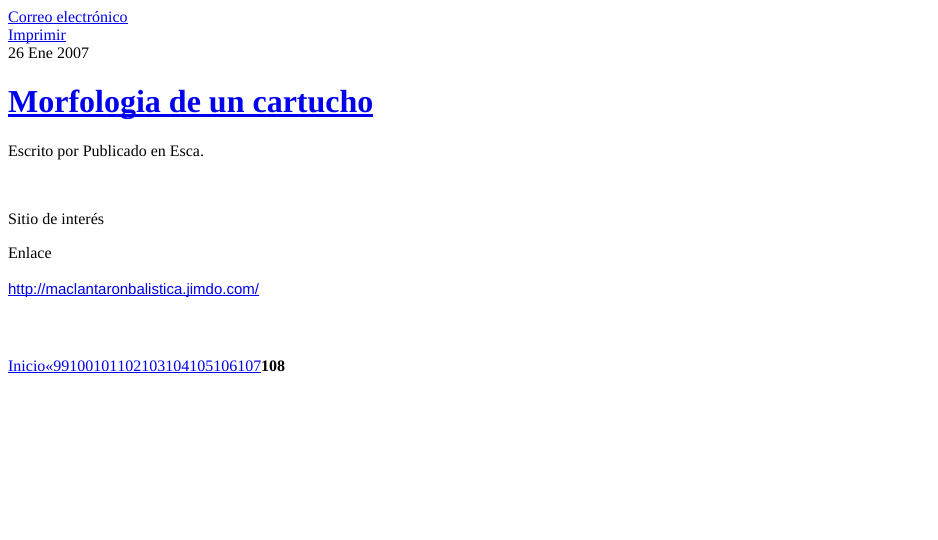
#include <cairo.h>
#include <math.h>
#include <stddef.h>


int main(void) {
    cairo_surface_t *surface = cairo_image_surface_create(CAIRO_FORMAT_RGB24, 938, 540);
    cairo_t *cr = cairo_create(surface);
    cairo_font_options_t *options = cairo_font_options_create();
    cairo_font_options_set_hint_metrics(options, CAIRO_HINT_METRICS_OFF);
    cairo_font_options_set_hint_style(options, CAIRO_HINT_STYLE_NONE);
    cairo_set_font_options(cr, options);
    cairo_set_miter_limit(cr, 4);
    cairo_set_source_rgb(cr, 1, 1, 1);
    cairo_paint(cr);
    cairo_select_font_face(cr, "Liberation Serif", CAIRO_FONT_SLANT_NORMAL, CAIRO_FONT_WEIGHT_NORMAL);
    cairo_set_font_size(cr, 16);
    cairo_set_source_rgb(cr, 0, 0, 0.933);
    cairo_move_to(cr, 8, 22);
    cairo_show_text(cr, "Correo electrónico");
    cairo_rectangle(cr, 8, 23, 120, 1);
    cairo_fill(cr);
    cairo_rectangle(cr, 8, 41, 58, 1);
    cairo_fill(cr);
    cairo_move_to(cr, 8, 40);
    cairo_show_text(cr, "Imprimir");
    cairo_set_source_rgb(cr, 0, 0, 0);
    cairo_move_to(cr, 8, 58);
    cairo_show_text(cr, "26 Ene 2007");
    cairo_set_source_rgb(cr, 0, 0, 0.933);
    cairo_rectangle(cr, 8, 114, 365, 3);
    cairo_fill(cr);
    cairo_select_font_face(cr, "Liberation Serif", CAIRO_FONT_SLANT_NORMAL, CAIRO_FONT_WEIGHT_BOLD);
    cairo_set_font_size(cr, 32);
    cairo_move_to(cr, 8, 112);
    cairo_show_text(cr, "Morfologia de un cartucho");
    cairo_select_font_face(cr, "Liberation Serif", CAIRO_FONT_SLANT_NORMAL, CAIRO_FONT_WEIGHT_NORMAL);
    cairo_set_font_size(cr, 16);
    cairo_set_source_rgb(cr, 0, 0, 0);
    cairo_move_to(cr, 8, 156);
    cairo_show_text(cr, "Escrito por Publicado en Esca.");
    cairo_move_to(cr, 8, 224);
    cairo_show_text(cr, "Sitio de interés");
    cairo_move_to(cr, 8, 258);
    cairo_show_text(cr, "Enlace");
    cairo_set_source_rgb(cr, 0, 0, 0.933);
    cairo_rectangle(cr, 8, 295, 251, 1);
    cairo_fill(cr);
    cairo_select_font_face(cr, "Liberation Sans", CAIRO_FONT_SLANT_NORMAL, CAIRO_FONT_WEIGHT_NORMAL);
    cairo_set_font_size(cr, 15);
    cairo_move_to(cr, 8, 294);
    cairo_show_text(cr, "http://maclantaronbalistica.jimdo.com/");
    cairo_select_font_face(cr, "Liberation Serif", CAIRO_FONT_SLANT_NORMAL, CAIRO_FONT_WEIGHT_NORMAL);
    cairo_set_font_size(cr, 16);
    cairo_move_to(cr, 8, 371);
    cairo_show_text(cr, "Inicio«99100101102103104105106107");
    cairo_rectangle(cr, 8, 372, 253, 1);
    cairo_fill(cr);
    cairo_select_font_face(cr, "Liberation Serif", CAIRO_FONT_SLANT_NORMAL, CAIRO_FONT_WEIGHT_BOLD);
    cairo_set_source_rgb(cr, 0, 0, 0);
    cairo_move_to(cr, 261, 371);
    cairo_show_text(cr, "108");
    cairo_surface_write_to_png(surface, "page.png");
    cairo_font_options_destroy(options);
    cairo_destroy(cr);
    cairo_surface_destroy(surface);
    return 0;
}
